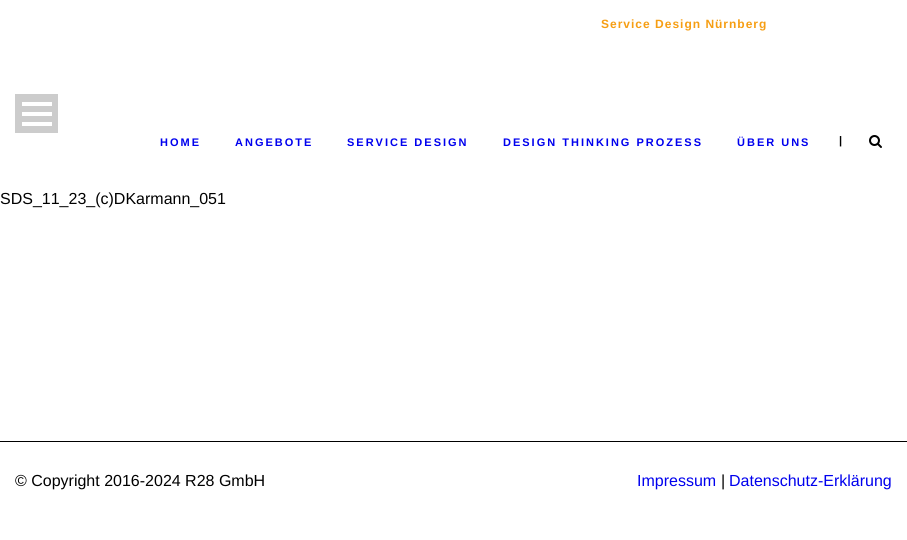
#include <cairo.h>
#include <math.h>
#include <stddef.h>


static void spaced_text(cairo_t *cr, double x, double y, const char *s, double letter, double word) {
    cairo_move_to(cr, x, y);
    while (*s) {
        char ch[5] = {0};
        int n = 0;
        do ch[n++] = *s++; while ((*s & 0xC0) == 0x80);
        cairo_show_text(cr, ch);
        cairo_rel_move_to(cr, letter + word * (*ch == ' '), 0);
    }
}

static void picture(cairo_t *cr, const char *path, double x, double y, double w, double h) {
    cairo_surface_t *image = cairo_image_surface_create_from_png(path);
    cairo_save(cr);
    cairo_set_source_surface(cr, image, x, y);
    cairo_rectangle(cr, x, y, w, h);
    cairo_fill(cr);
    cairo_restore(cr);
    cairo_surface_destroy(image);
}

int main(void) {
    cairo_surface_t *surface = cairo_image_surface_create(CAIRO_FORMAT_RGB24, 907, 540);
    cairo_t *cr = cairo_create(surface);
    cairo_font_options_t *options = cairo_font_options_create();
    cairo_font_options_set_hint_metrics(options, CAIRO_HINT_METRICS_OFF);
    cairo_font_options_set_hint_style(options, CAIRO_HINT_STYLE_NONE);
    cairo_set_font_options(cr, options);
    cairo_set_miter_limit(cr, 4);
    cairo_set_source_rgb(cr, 1, 1, 1);
    cairo_paint(cr);
    cairo_select_font_face(cr, "Liberation Sans", CAIRO_FONT_SLANT_NORMAL, CAIRO_FONT_WEIGHT_BOLD);
    cairo_set_font_size(cr, 12);
    cairo_set_source_rgb(cr, 0.961, 0.62, 0.075);
    spaced_text(cr, 601, 28, "Service Design Nürnberg", 1, 0);
    cairo_set_source_rgb(cr, 0.8, 0.8, 0.8);
    cairo_rectangle(cr, 15, 94, 43, 39);
    cairo_fill(cr);
    cairo_set_source_rgb(cr, 1, 1, 1);
    cairo_rectangle(cr, 22, 122, 30, 4);
    cairo_fill(cr);
    cairo_rectangle(cr, 22, 112, 30, 4);
    cairo_fill(cr);
    cairo_rectangle(cr, 22, 102, 30, 4);
    cairo_fill(cr);
    cairo_set_font_size(cr, 11);
    cairo_set_source_rgb(cr, 0, 0, 0.933);
    spaced_text(cr, 160, 146, "HOME", 2, 0);
    spaced_text(cr, 235, 146, "ANGEBOTE", 2, 0);
    spaced_text(cr, 347, 146, "SERVICE DESIGN", 2, 0);
    spaced_text(cr, 503, 146, "DESIGN THINKING PROZESS", 2, 0);
    spaced_text(cr, 737, 146, "ÜBER UNS", 2, 0);
    cairo_set_source_rgb(cr, 0, 0, 0);
    cairo_move_to(cr, 839, 144);
    cairo_show_text(cr, "|");
    picture(cr, "img1.png", 869, 135, 13, 13);
    cairo_select_font_face(cr, "Liberation Sans", CAIRO_FONT_SLANT_NORMAL, CAIRO_FONT_WEIGHT_NORMAL);
    cairo_set_font_size(cr, 16);
    cairo_move_to(cr, 0, 204);
    cairo_show_text(cr, "SDS_11_23_(c)DKarmann_051");
    cairo_rectangle(cr, 0, 441, 907, 1);
    cairo_fill(cr);
    cairo_move_to(cr, 15, 486);
    cairo_show_text(cr, "© Copyright 2016-2024 R28 GmbH");
    cairo_set_source_rgb(cr, 0, 0, 0.933);
    cairo_move_to(cr, 637, 486);
    cairo_show_text(cr, "Impressum");
    cairo_set_source_rgb(cr, 0, 0, 0);
    cairo_move_to(cr, 721, 486);
    cairo_show_text(cr, "|");
    cairo_set_source_rgb(cr, 0, 0, 0.933);
    cairo_move_to(cr, 729, 486);
    cairo_show_text(cr, "Datenschutz-Erklärung");
    cairo_surface_write_to_png(surface, "page.png");
    cairo_font_options_destroy(options);
    cairo_destroy(cr);
    cairo_surface_destroy(surface);
    return 0;
}
